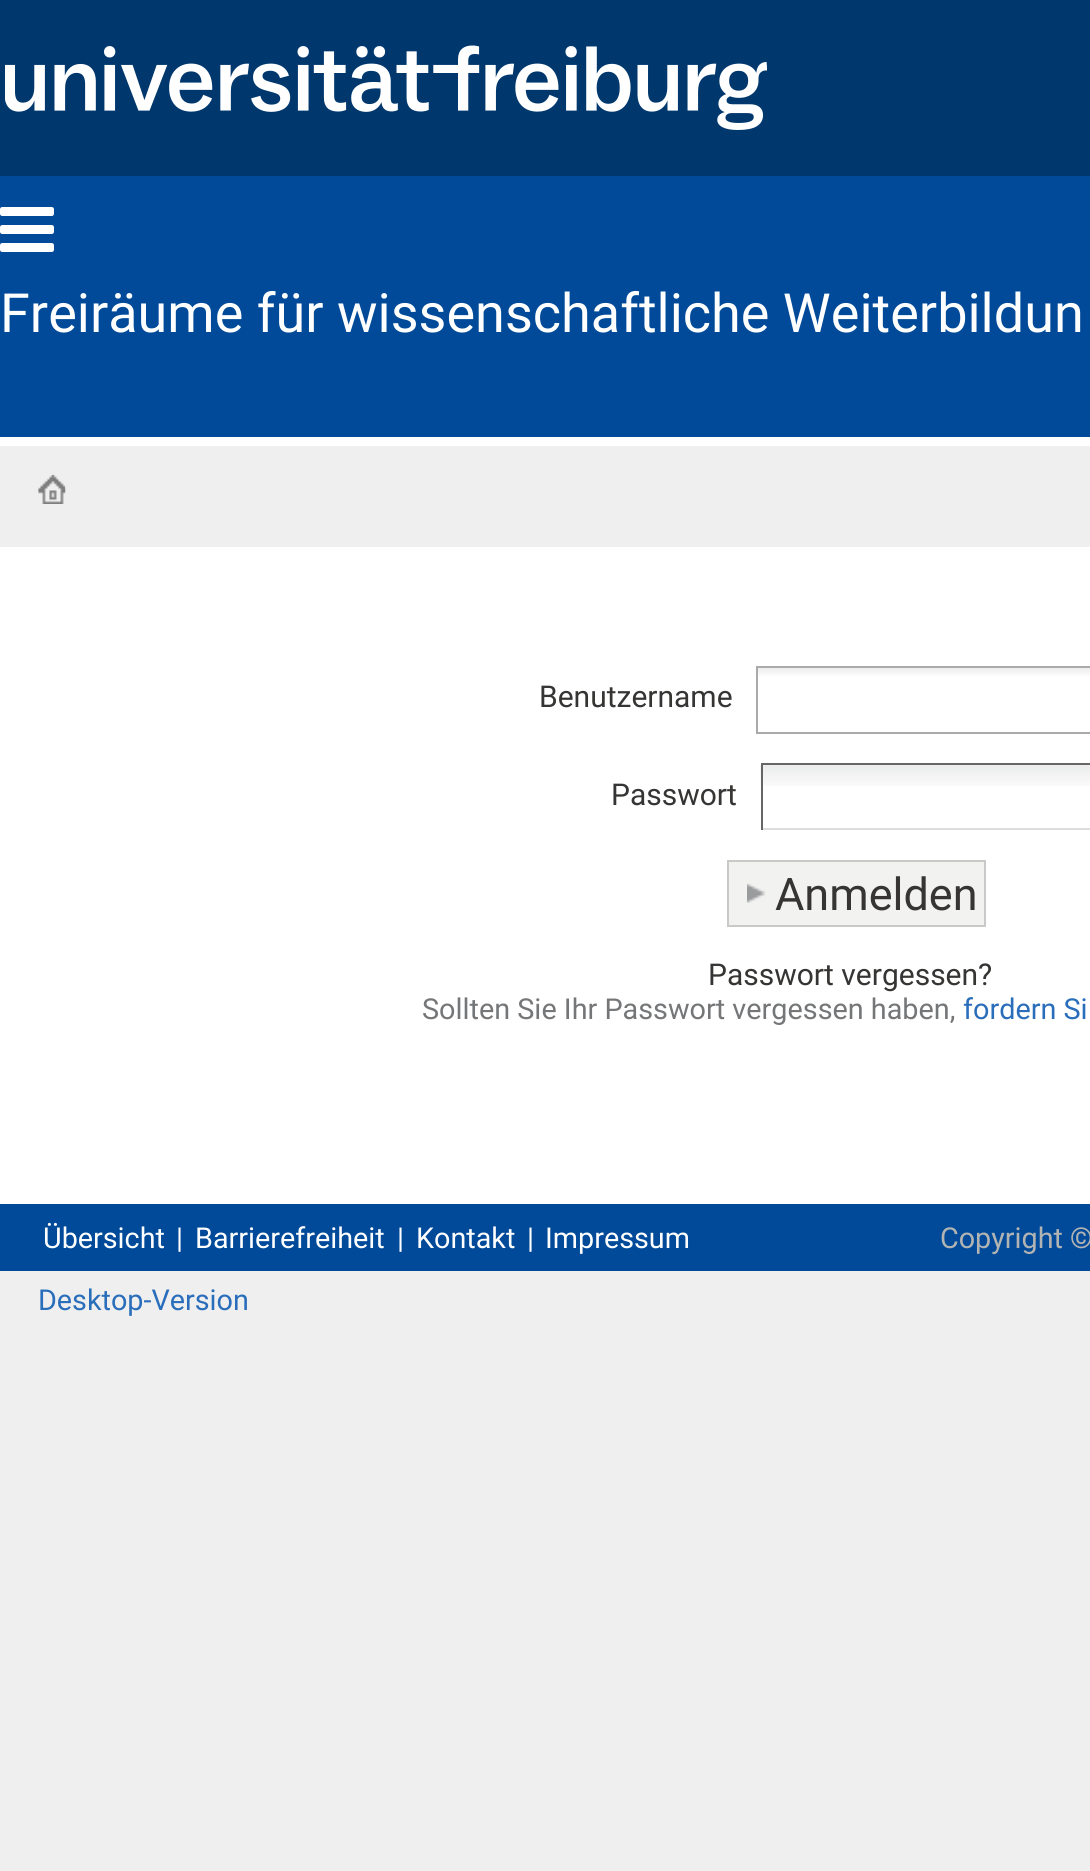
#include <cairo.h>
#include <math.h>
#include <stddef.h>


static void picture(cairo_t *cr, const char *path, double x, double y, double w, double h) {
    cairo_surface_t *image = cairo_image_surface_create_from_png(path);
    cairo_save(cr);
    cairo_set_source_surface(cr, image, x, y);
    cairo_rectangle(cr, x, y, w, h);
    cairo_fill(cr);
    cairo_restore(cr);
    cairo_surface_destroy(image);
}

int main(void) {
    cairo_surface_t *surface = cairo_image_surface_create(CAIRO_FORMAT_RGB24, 1090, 1871);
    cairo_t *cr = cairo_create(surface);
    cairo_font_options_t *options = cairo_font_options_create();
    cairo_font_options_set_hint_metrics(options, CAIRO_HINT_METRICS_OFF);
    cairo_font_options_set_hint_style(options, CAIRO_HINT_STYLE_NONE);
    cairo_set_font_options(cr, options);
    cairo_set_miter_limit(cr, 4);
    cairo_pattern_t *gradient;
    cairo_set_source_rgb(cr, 0.937, 0.937, 0.937);
    cairo_paint(cr);
    cairo_set_source_rgb(cr, 0, 0.29, 0.6);
    cairo_rectangle(cr, 0, 176, 1090, 261);
    cairo_fill(cr);
    cairo_set_source_rgb(cr, 1, 1, 1);
    cairo_rectangle(cr, 0, 437, 1090, 9);
    cairo_fill(cr);
    cairo_set_source_rgb(cr, 0, 0.216, 0.427);
    cairo_rectangle(cr, 0, 0, 1090, 176);
    cairo_fill(cr);
    picture(cr, "img1.png", 5, 45, 762, 85);
    picture(cr, "img2.png", 0, 207, 54, 45);
    cairo_select_font_face(cr, "Roboto", CAIRO_FONT_SLANT_NORMAL, CAIRO_FONT_WEIGHT_NORMAL);
    cairo_set_font_size(cr, 54);
    cairo_set_source_rgb(cr, 1, 1, 1);
    cairo_move_to(cr, 0, 332);
    cairo_show_text(cr, "Freiräume für wissenschaftliche Weiterbildun");
    cairo_rectangle(cr, 0, 547, 1090, 657);
    cairo_fill(cr);
    picture(cr, "img3.png", 38, 474, 28, 30);
    cairo_set_font_size(cr, 30);
    cairo_set_source_rgb(cr, 0.212, 0.208, 0.204);
    cairo_move_to(cr, 539, 707);
    cairo_show_text(cr, "Benutzername");
    gradient = cairo_pattern_create_linear(1013, 668, 1013, 731);
    cairo_pattern_add_color_stop_rgba(gradient, 0.01, 0.933, 0.933, 0.933, 1);
    cairo_pattern_add_color_stop_rgba(gradient, 0.15, 1, 1, 1, 1);
    cairo_set_source(cr, gradient);
    cairo_pattern_destroy(gradient);
    cairo_rectangle(cr, 758, 668, 332, 8);
    cairo_fill(cr);
    cairo_rectangle(cr, 757, 667, 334, 66);
    cairo_set_source_rgb(cr, 0.667, 0.667, 0.667);
    cairo_stroke(cr);
    cairo_set_source_rgb(cr, 0.212, 0.208, 0.204);
    cairo_move_to(cr, 611, 805);
    cairo_show_text(cr, "Passwort");
    picture(cr, "img4.png", 760, 765, 330, 21);
    cairo_set_source_rgb(cr, 0.4, 0.4, 0.4);
    cairo_rectangle(cr, 761, 763, 329, 2);
    cairo_fill(cr);
    cairo_set_source_rgb(cr, 0.867, 0.867, 0.867);
    cairo_rectangle(cr, 761, 828, 329, 2);
    cairo_fill(cr);
    cairo_set_source_rgb(cr, 0.4, 0.4, 0.4);
    cairo_rectangle(cr, 761, 763, 2, 67);
    cairo_fill(cr);
    cairo_set_source_rgb(cr, 0.949, 0.953, 0.945);
    cairo_rectangle(cr, 729, 862, 255, 63);
    cairo_fill(cr);
    picture(cr, "img5.png", 747, 883, 18, 20);
    cairo_rectangle(cr, 728, 861, 257, 65);
    cairo_set_source_rgb(cr, 0.788, 0.792, 0.784);
    cairo_stroke(cr);
    cairo_set_font_size(cr, 45);
    cairo_set_source_rgb(cr, 0.212, 0.208, 0.204);
    cairo_move_to(cr, 775, 910);
    cairo_show_text(cr, "Anmelden");
    cairo_set_font_size(cr, 30);
    cairo_move_to(cr, 708, 985);
    cairo_show_text(cr, "Passwort vergessen?");
    cairo_set_font_size(cr, 28.8);
    cairo_set_source_rgb(cr, 0.455, 0.463, 0.471);
    cairo_move_to(cr, 422, 1019);
    cairo_show_text(cr, "Sollten Sie Ihr Passwort vergessen haben,");
    cairo_set_source_rgb(cr, 0.165, 0.431, 0.733);
    cairo_move_to(cr, 963, 1019);
    cairo_show_text(cr, "fordern Si");
    cairo_set_source_rgb(cr, 0, 0.29, 0.6);
    cairo_rectangle(cr, 0, 1204, 1090, 67);
    cairo_fill(cr);
    cairo_set_font_size(cr, 28.75);
    cairo_set_source_rgb(cr, 1, 1, 1);
    cairo_move_to(cr, 43, 1248);
    cairo_show_text(cr, "Übersicht");
    cairo_move_to(cr, 176, 1248);
    cairo_show_text(cr, "|");
    cairo_move_to(cr, 195, 1248);
    cairo_show_text(cr, "Barrierefreiheit");
    cairo_move_to(cr, 397, 1248);
    cairo_show_text(cr, "|");
    cairo_move_to(cr, 416, 1248);
    cairo_show_text(cr, "Kontakt");
    cairo_move_to(cr, 527, 1248);
    cairo_show_text(cr, "|");
    cairo_move_to(cr, 545, 1248);
    cairo_show_text(cr, "Impressum");
    cairo_set_source_rgb(cr, 0.698, 0.706, 0.702);
    cairo_move_to(cr, 940, 1248);
    cairo_show_text(cr, "Copyright ©");
    cairo_set_source_rgb(cr, 0.165, 0.431, 0.733);
    cairo_move_to(cr, 38, 1310);
    cairo_show_text(cr, "Desktop-Version");
    cairo_surface_write_to_png(surface, "page.png");
    cairo_font_options_destroy(options);
    cairo_destroy(cr);
    cairo_surface_destroy(surface);
    return 0;
}
